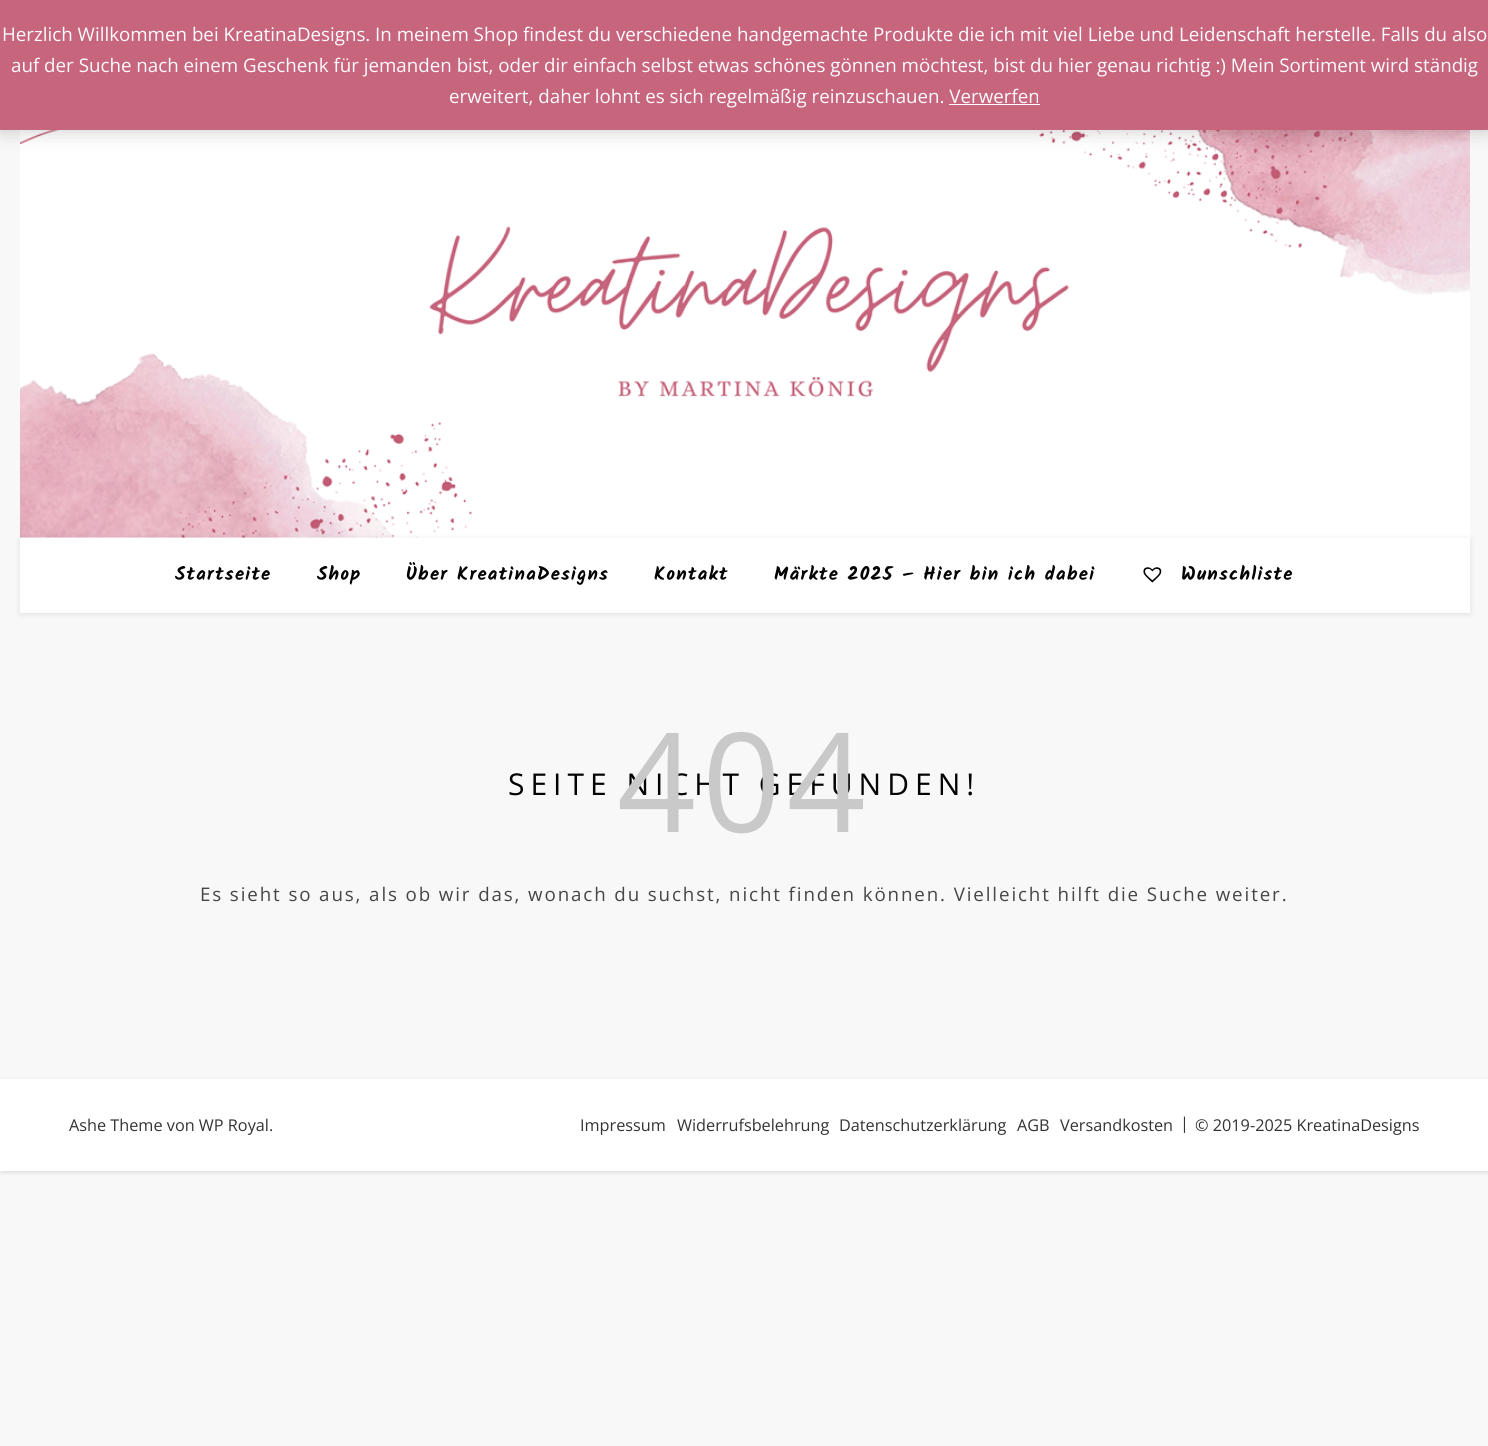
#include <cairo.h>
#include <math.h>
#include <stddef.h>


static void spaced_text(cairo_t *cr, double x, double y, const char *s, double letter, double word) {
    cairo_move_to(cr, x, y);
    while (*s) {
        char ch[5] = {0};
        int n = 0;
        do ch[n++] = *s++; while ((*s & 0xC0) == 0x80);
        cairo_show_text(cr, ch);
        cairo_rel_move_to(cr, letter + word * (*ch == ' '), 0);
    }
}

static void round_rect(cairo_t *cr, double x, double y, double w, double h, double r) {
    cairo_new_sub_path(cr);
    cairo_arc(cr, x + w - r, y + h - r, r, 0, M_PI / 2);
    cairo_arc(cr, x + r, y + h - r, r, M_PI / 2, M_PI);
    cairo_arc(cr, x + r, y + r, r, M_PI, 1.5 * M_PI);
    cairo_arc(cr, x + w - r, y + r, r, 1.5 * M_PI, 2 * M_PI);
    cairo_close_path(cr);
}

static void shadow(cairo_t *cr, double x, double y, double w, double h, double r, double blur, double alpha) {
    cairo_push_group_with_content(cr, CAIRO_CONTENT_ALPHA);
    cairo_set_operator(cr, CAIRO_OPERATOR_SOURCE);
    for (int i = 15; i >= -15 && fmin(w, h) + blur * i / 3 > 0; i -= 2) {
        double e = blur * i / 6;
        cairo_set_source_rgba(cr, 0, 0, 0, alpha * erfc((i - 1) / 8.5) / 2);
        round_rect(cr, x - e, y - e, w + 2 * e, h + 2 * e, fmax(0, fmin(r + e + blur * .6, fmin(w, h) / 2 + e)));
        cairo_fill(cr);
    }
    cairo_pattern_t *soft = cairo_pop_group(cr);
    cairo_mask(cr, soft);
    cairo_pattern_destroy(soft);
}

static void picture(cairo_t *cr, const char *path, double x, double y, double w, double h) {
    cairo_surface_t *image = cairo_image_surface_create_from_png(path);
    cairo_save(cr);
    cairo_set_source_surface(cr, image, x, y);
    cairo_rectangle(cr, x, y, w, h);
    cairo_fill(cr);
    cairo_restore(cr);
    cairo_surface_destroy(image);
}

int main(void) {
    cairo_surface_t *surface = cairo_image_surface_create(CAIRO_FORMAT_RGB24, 1488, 1446);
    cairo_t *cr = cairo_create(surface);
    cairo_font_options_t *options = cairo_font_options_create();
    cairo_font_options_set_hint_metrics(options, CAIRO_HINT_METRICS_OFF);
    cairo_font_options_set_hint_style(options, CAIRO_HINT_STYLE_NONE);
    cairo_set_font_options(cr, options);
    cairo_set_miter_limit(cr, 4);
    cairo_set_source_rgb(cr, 0.969, 0.969, 0.969);
    cairo_paint(cr);
    cairo_set_source_rgb(cr, 1, 1, 1);
    cairo_rectangle(cr, 20, 537, 1450, 1);
    cairo_fill(cr);
    picture(cr, "img1.png", 20, 130, 1450, 408);
    cairo_set_source_rgb(cr, 0, 0, 0);
    shadow(cr, 0, 1, 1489, 130, 0, 9.5, 0.2);
    cairo_set_source_rgb(cr, 0.78, 0.396, 0.49);
    cairo_rectangle(cr, 0, 0, 1488, 130);
    cairo_fill(cr);
    cairo_select_font_face(cr, "Open Sans", CAIRO_FONT_SLANT_NORMAL, CAIRO_FONT_WEIGHT_NORMAL);
    cairo_set_font_size(cr, 18.75);
    cairo_set_source_rgb(cr, 0.988, 0.984, 0.996);
    cairo_move_to(cr, 2, 41);
    cairo_show_text(cr, "Herzlich Willkommen bei KreatinaDesigns. In meinem Shop findest du verschiedene handgemachte Produkte die ich mit viel Liebe und Leidenschaft herstelle. Falls du also");
    cairo_move_to(cr, 11, 72);
    cairo_show_text(cr, "auf der Suche nach einem Geschenk für jemanden bist, oder dir einfach selbst etwas schönes gönnen möchtest, bist du hier genau richtig :) Mein Sortiment wird ständig");
    cairo_move_to(cr, 449, 103);
    cairo_show_text(cr, "erweitert, daher lohnt es sich regelmäßig reinzuschauen. Verwerfen");
    cairo_rectangle(cr, 949, 104, 91, 1);
    cairo_fill(cr);
    cairo_set_source_rgb(cr, 0, 0, 0);
    shadow(cr, 20, 539, 1450, 75, 0, 3, 0.1);
    cairo_set_source_rgb(cr, 1, 1, 1);
    cairo_rectangle(cr, 20, 538, 1450, 75);
    cairo_fill(cr);
    cairo_select_font_face(cr, "Kalam", CAIRO_FONT_SLANT_NORMAL, CAIRO_FONT_WEIGHT_BOLD);
    cairo_set_source_rgb(cr, 0.012, 0.012, 0.012);
    spaced_text(cr, 175, 580, "Startseite", 1.25, 0);
    spaced_text(cr, 317, 580, "Shop", 1.25, 0);
    spaced_text(cr, 406, 580, "Über KreatinaDesigns", 1.25, 0);
    spaced_text(cr, 654, 580, "Kontakt", 1.25, 0);
    spaced_text(cr, 774, 580, "Märkte 2025 – Hier bin ich dabei", 1.25, 0);
    picture(cr, "img2.png", 1143, 567, 19, 16);
    spaced_text(cr, 1181, 580, "Wunschliste", 1.25, 0);
    cairo_select_font_face(cr, "Open Sans", CAIRO_FONT_SLANT_NORMAL, CAIRO_FONT_WEIGHT_NORMAL);
    cairo_set_font_size(cr, 30);
    spaced_text(cr, 508, 795, "SEITE NICHT GEFUNDEN!", 6, 0);
    cairo_set_font_size(cr, 138);
    cairo_set_source_rgb(cr, 0.788, 0.788, 0.788);
    spaced_text(cr, 617, 832, "404", 6, 0);
    cairo_set_font_size(cr, 18.75);
    cairo_set_source_rgb(cr, 0.275, 0.275, 0.275);
    spaced_text(cr, 200, 901, "Es sieht so aus, als ob wir das, wonach du suchst, nicht finden können. Vielleicht hilft die Suche weiter.", 1.88, 0);
    cairo_set_source_rgb(cr, 0, 0, 0);
    shadow(cr, 1, 1080, 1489, 93, 0, 2, 0.1);
    cairo_set_source_rgb(cr, 1, 1, 1);
    cairo_rectangle(cr, 0, 1079, 1488, 92);
    cairo_fill(cr);
    cairo_set_font_size(cr, 16.25);
    cairo_set_source_rgb(cr, 0.2, 0.2, 0.2);
    cairo_move_to(cr, 69, 1131);
    cairo_show_text(cr, "Ashe Theme von WP Royal.");
    cairo_move_to(cr, 580, 1131);
    cairo_show_text(cr, "Impressum");
    cairo_move_to(cr, 677, 1131);
    cairo_show_text(cr, "Widerrufsbelehrung");
    cairo_move_to(cr, 839, 1131);
    cairo_show_text(cr, "Datenschutzerklärung");
    cairo_move_to(cr, 1017, 1131);
    cairo_show_text(cr, "AGB");
    cairo_move_to(cr, 1060, 1131);
    cairo_show_text(cr, "Versandkosten");
    cairo_move_to(cr, 1180, 1129);
    cairo_show_text(cr, "|");
    cairo_move_to(cr, 1195, 1131);
    cairo_show_text(cr, "© 2019-2025 KreatinaDesigns");
    cairo_surface_write_to_png(surface, "page.png");
    cairo_font_options_destroy(options);
    cairo_destroy(cr);
    cairo_surface_destroy(surface);
    return 0;
}
